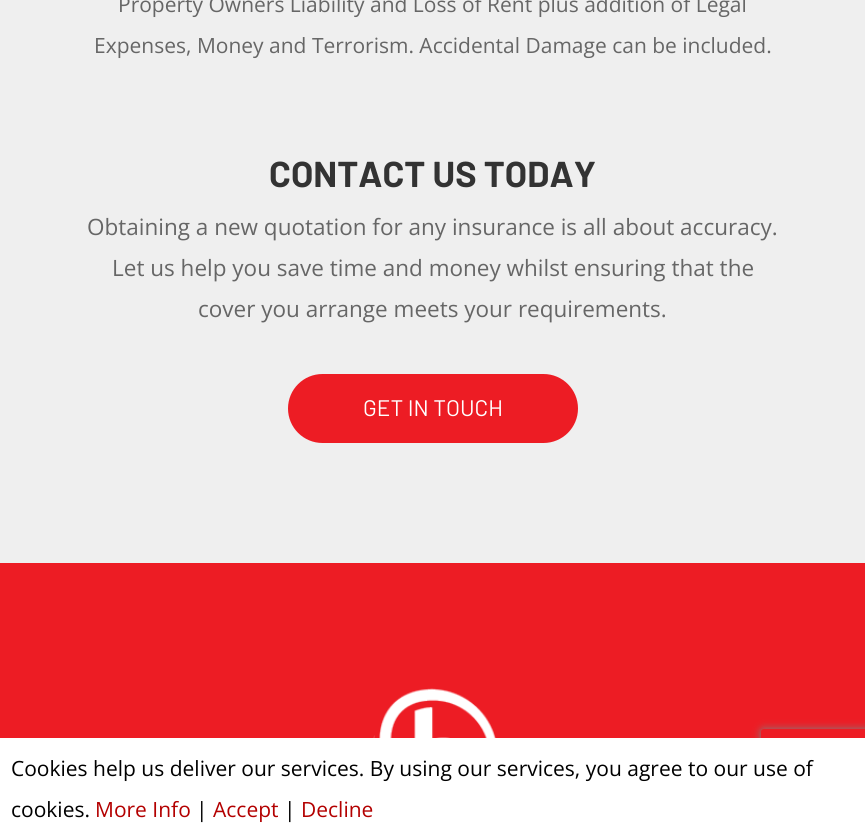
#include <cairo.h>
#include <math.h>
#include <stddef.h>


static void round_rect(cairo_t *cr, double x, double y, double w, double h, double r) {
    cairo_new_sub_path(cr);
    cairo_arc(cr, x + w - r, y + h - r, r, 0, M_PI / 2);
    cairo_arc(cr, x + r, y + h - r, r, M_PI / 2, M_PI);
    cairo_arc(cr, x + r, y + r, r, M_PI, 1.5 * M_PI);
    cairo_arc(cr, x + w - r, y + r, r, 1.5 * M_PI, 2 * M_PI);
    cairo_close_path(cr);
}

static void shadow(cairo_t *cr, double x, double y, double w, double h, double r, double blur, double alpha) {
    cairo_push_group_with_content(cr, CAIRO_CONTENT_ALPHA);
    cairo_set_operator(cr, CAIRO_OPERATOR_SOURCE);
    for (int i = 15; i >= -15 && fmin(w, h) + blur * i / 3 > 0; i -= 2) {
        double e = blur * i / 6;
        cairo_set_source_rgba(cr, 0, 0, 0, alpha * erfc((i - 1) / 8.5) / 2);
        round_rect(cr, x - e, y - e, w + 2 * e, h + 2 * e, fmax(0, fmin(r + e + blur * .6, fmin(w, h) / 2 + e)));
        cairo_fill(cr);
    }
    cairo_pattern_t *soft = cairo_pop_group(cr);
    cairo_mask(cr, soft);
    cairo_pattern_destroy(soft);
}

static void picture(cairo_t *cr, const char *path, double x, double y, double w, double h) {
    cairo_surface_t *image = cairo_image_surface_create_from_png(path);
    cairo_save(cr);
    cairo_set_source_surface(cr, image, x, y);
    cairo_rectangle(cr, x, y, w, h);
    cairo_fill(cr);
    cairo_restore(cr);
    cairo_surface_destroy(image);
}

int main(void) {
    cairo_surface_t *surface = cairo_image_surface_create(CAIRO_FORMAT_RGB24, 865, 840);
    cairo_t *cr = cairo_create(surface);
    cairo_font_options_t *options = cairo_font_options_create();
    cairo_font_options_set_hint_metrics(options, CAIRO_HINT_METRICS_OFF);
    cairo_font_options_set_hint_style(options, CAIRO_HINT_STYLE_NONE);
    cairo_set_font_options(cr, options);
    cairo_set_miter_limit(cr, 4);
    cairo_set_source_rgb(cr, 0.937, 0.937, 0.937);
    cairo_paint(cr);
    cairo_select_font_face(cr, "Open Sans", CAIRO_FONT_SLANT_NORMAL, CAIRO_FONT_WEIGHT_NORMAL);
    cairo_set_font_size(cr, 21);
    cairo_set_source_rgb(cr, 0.4, 0.4, 0.4);
    cairo_move_to(cr, 118, 12);
    cairo_show_text(cr, "Property Owners Liability and Loss of Rent plus addition of Legal");
    cairo_move_to(cr, 94, 53);
    cairo_show_text(cr, "Expenses, Money and Terrorism. Accidental Damage can be included.");
    cairo_select_font_face(cr, "Barlow", CAIRO_FONT_SLANT_NORMAL, CAIRO_FONT_WEIGHT_BOLD);
    cairo_set_font_size(cr, 36);
    cairo_set_source_rgb(cr, 0.2, 0.2, 0.2);
    cairo_move_to(cr, 269, 187);
    cairo_show_text(cr, "CONTACT US TODAY");
    cairo_select_font_face(cr, "Open Sans", CAIRO_FONT_SLANT_NORMAL, CAIRO_FONT_WEIGHT_NORMAL);
    cairo_set_font_size(cr, 22.5);
    cairo_set_source_rgb(cr, 0.4, 0.4, 0.4);
    cairo_move_to(cr, 87, 235);
    cairo_show_text(cr, "Obtaining a new quotation for any insurance is all about accuracy.");
    cairo_move_to(cr, 112, 276);
    cairo_show_text(cr, "Let us help you save time and money whilst ensuring that the");
    cairo_move_to(cr, 198, 317);
    cairo_show_text(cr, "cover you arrange meets your requirements.");
    cairo_set_source_rgb(cr, 0.929, 0.11, 0.141);
    round_rect(cr, 288, 374, 290, 69, 34.5);
    cairo_fill(cr);
    cairo_select_font_face(cr, "Barlow", CAIRO_FONT_SLANT_NORMAL, CAIRO_FONT_WEIGHT_NORMAL);
    cairo_set_source_rgb(cr, 1, 1, 1);
    cairo_move_to(cr, 363, 416);
    cairo_show_text(cr, "GET IN TOUCH");
    cairo_set_source_rgb(cr, 0.929, 0.11, 0.141);
    cairo_rectangle(cr, 0, 563, 865, 175);
    cairo_fill(cr);
    picture(cr, "img1.png", 373, 688, 123, 50);
    cairo_save(cr);
    cairo_set_fill_rule(cr, CAIRO_FILL_RULE_EVEN_ODD);
    cairo_new_path(cr);
    cairo_move_to(cr, 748, 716);
    cairo_line_to(cr, 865, 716);
    cairo_line_to(cr, 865, 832);
    cairo_line_to(cr, 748, 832);
    cairo_close_path(cr);
    cairo_move_to(cr, 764, 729);
    cairo_line_to(cr, 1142, 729);
    cairo_curve_to(cr, 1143.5, 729, 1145, 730.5, 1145, 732);
    cairo_line_to(cr, 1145, 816);
    cairo_curve_to(cr, 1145, 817.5, 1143.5, 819, 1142, 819);
    cairo_line_to(cr, 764, 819);
    cairo_curve_to(cr, 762.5, 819, 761, 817.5, 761, 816);
    cairo_line_to(cr, 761, 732);
    cairo_curve_to(cr, 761, 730.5, 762.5, 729, 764, 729);
    cairo_close_path(cr);
    cairo_clip(cr);
    cairo_set_source_rgb(cr, 0.502, 0.502, 0.502);
    shadow(cr, 761, 729, 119, 90, 3, 4, 1);
    cairo_restore(cr);
    cairo_set_source_rgb(cr, 1, 1, 1);
    cairo_rectangle(cr, 0, 738, 865, 102);
    cairo_fill(cr);
    cairo_select_font_face(cr, "Open Sans", CAIRO_FONT_SLANT_NORMAL, CAIRO_FONT_WEIGHT_NORMAL);
    cairo_set_font_size(cr, 21);
    cairo_set_source_rgb(cr, 0, 0, 0);
    cairo_move_to(cr, 11, 776);
    cairo_show_text(cr, "Cookies help us deliver our services. By using our services, you agree to our use of");
    cairo_move_to(cr, 11, 817);
    cairo_show_text(cr, "cookies.");
    cairo_set_source_rgb(cr, 0.702, 0, 0);
    cairo_move_to(cr, 95, 817);
    cairo_show_text(cr, "More Info");
    cairo_set_source_rgb(cr, 0, 0, 0);
    cairo_move_to(cr, 196, 817);
    cairo_show_text(cr, "|");
    cairo_set_source_rgb(cr, 0.702, 0, 0);
    cairo_move_to(cr, 213, 817);
    cairo_show_text(cr, "Accept");
    cairo_set_source_rgb(cr, 0, 0, 0);
    cairo_move_to(cr, 284, 817);
    cairo_show_text(cr, "|");
    cairo_set_source_rgb(cr, 0.702, 0, 0);
    cairo_move_to(cr, 301, 817);
    cairo_show_text(cr, "Decline");
    cairo_surface_write_to_png(surface, "page.png");
    cairo_font_options_destroy(options);
    cairo_destroy(cr);
    cairo_surface_destroy(surface);
    return 0;
}
